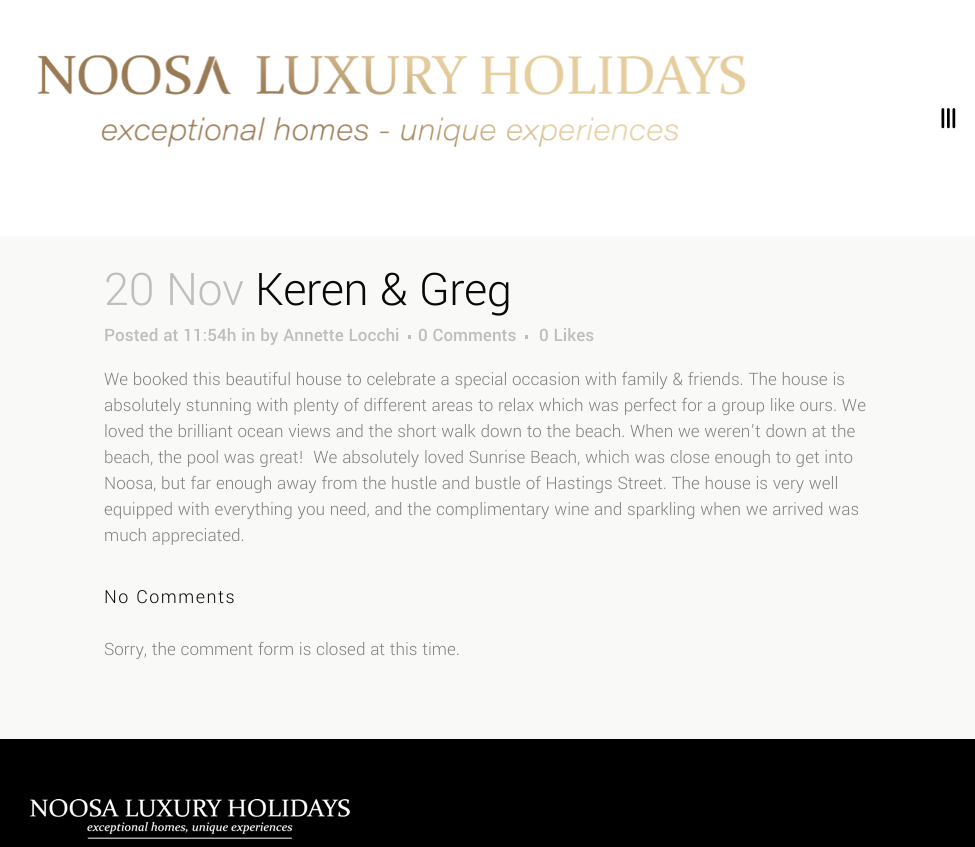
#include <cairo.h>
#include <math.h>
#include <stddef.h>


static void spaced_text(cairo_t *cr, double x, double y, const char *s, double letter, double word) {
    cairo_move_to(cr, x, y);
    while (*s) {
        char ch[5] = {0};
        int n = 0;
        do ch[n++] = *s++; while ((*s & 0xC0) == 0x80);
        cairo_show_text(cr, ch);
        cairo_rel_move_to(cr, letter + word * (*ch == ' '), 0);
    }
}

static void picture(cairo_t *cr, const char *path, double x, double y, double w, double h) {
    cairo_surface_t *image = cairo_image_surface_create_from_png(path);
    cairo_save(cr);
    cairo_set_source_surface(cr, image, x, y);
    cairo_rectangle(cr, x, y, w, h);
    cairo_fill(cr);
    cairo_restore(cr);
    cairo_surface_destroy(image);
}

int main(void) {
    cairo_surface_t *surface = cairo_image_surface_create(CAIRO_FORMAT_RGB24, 975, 847);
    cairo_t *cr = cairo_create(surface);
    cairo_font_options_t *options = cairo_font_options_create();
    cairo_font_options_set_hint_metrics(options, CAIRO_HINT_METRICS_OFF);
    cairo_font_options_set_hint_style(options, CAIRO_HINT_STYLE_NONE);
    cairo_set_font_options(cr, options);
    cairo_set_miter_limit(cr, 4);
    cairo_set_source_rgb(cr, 0.976, 0.973, 0.965);
    cairo_paint(cr);
    cairo_set_source_rgb(cr, 1, 1, 1);
    cairo_rectangle(cr, 0, 0, 975, 236);
    cairo_fill(cr);
    picture(cr, "img1.png", 37, 54, 709, 93);
    picture(cr, "img2.png", 941, 108, 15, 21);
    cairo_select_font_face(cr, "Yantramanav Light", CAIRO_FONT_SLANT_NORMAL, CAIRO_FONT_WEIGHT_NORMAL);
    cairo_set_font_size(cr, 50);
    cairo_set_source_rgb(cr, 0.745, 0.745, 0.745);
    spaced_text(cr, 104, 305, "20 Nov", -0.5, 0);
    cairo_set_source_rgb(cr, 0.039, 0.039, 0.039);
    spaced_text(cr, 255, 305, "Keren & Greg", -0.5, 0);
    cairo_select_font_face(cr, "Yantramanav Medium", CAIRO_FONT_SLANT_NORMAL, CAIRO_FONT_WEIGHT_NORMAL);
    cairo_set_font_size(cr, 19);
    cairo_set_source_rgb(cr, 0.745, 0.745, 0.745);
    cairo_move_to(cr, 104, 341);
    cairo_show_text(cr, "Posted at 11:54h in by Annette Locchi");
    cairo_rectangle(cr, 408, 335, 3, 4);
    cairo_fill(cr);
    cairo_move_to(cr, 418, 341);
    cairo_show_text(cr, "0 Comments");
    cairo_rectangle(cr, 525, 335, 3, 4);
    cairo_fill(cr);
    cairo_move_to(cr, 539, 341);
    cairo_show_text(cr, "0 Likes");
    cairo_select_font_face(cr, "Yantramanav Light", CAIRO_FONT_SLANT_NORMAL, CAIRO_FONT_WEIGHT_NORMAL);
    cairo_set_source_rgb(cr, 0.506, 0.506, 0.506);
    cairo_move_to(cr, 104, 385);
    cairo_show_text(cr, "We booked this beautiful house to celebrate a special occasion with family & friends. The house is");
    cairo_move_to(cr, 104, 411);
    cairo_show_text(cr, "absolutely stunning with plenty of different areas to relax which was perfect for a group like ours. We");
    cairo_move_to(cr, 104, 437);
    cairo_show_text(cr, "loved the brilliant ocean views and the short walk down to the beach. When we weren’t down at the");
    cairo_move_to(cr, 104, 463);
    cairo_show_text(cr, "beach, the pool was great!  We absolutely loved Sunrise Beach, which was close enough to get into");
    cairo_move_to(cr, 104, 489);
    cairo_show_text(cr, "Noosa, but far enough away from the hustle and bustle of Hastings Street. The house is very well");
    cairo_move_to(cr, 104, 515);
    cairo_show_text(cr, "equipped with everything you need, and the complimentary wine and sparkling when we arrived was");
    cairo_move_to(cr, 104, 541);
    cairo_show_text(cr, "much appreciated.");
    cairo_set_font_size(cr, 20);
    cairo_set_source_rgb(cr, 0.039, 0.039, 0.039);
    spaced_text(cr, 104, 603, "No Comments", 1.5, 0);
    cairo_set_font_size(cr, 19);
    cairo_set_source_rgb(cr, 0.506, 0.506, 0.506);
    cairo_move_to(cr, 104, 655);
    cairo_show_text(cr, "Sorry, the comment form is closed at this time.");
    cairo_set_source_rgb(cr, 0, 0, 0);
    cairo_rectangle(cr, 0, 739, 975, 108);
    cairo_fill(cr);
    picture(cr, "img3.png", 30, 799, 320, 40);
    cairo_surface_write_to_png(surface, "page.png");
    cairo_font_options_destroy(options);
    cairo_destroy(cr);
    cairo_surface_destroy(surface);
    return 0;
}
